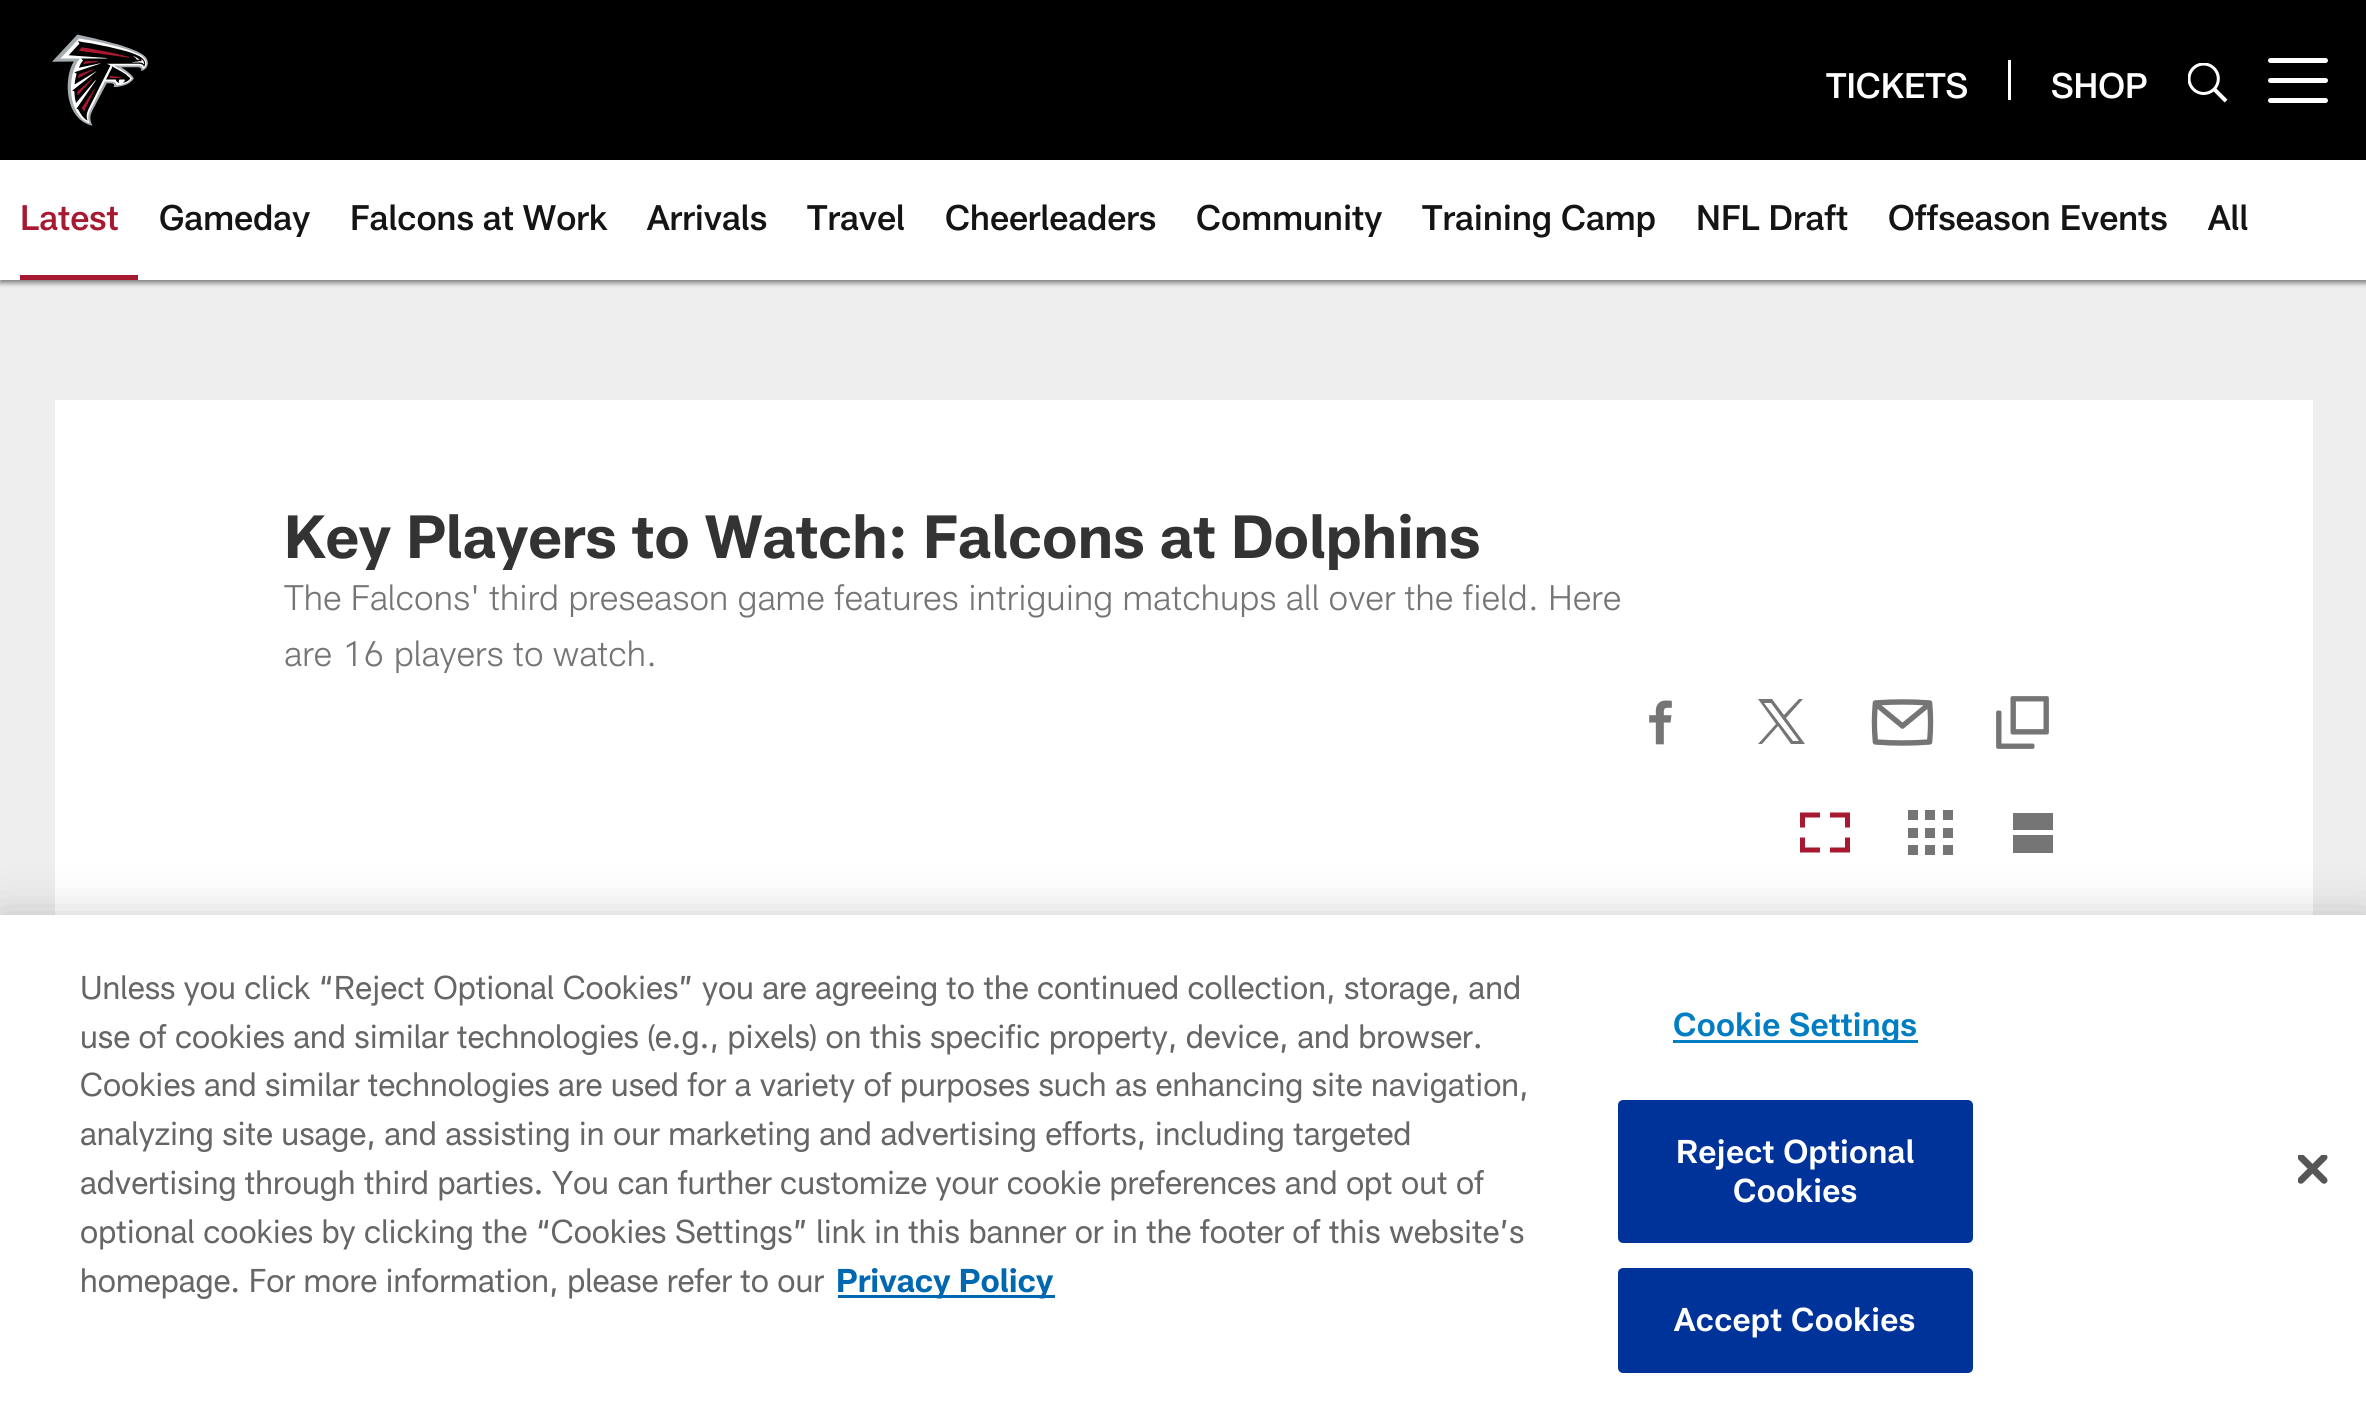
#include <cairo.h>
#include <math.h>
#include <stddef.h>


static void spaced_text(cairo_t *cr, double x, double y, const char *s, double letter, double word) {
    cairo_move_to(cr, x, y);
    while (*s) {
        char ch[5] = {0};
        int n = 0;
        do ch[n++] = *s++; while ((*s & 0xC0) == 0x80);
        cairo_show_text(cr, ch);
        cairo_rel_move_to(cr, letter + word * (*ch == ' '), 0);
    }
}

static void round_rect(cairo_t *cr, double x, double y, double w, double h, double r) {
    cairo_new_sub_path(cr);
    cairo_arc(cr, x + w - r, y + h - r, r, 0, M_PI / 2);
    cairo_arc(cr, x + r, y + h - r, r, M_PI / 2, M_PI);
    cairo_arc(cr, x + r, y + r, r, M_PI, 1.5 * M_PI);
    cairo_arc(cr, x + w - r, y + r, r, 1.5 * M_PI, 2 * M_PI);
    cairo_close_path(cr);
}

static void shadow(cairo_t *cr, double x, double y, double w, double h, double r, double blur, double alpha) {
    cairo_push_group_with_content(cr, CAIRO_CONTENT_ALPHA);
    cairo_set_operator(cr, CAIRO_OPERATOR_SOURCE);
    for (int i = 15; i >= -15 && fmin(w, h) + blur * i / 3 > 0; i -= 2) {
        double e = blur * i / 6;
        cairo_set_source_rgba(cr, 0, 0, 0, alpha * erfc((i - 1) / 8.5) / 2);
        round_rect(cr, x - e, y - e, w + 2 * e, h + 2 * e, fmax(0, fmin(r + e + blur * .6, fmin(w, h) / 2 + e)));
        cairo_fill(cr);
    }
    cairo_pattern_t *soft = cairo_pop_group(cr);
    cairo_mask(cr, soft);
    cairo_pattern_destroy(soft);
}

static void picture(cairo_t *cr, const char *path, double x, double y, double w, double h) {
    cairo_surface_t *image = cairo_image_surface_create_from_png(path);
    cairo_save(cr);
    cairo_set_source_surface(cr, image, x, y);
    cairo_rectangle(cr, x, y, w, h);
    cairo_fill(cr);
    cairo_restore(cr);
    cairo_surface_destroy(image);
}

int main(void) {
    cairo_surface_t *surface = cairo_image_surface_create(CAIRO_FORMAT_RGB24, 2366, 1421);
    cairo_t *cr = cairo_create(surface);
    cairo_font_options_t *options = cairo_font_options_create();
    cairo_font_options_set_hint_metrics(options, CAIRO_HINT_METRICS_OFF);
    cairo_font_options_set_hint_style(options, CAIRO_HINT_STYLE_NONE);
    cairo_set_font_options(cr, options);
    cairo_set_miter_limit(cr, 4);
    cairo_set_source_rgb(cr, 0.933, 0.933, 0.933);
    cairo_paint(cr);
    cairo_set_source_rgb(cr, 0, 0, 0);
    cairo_rectangle(cr, 0, 0, 2366, 160);
    cairo_fill(cr);
    picture(cr, "img1.png", 52, 34, 96, 92);
    cairo_select_font_face(cr, "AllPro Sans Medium", CAIRO_FONT_SLANT_NORMAL, CAIRO_FONT_WEIGHT_NORMAL);
    cairo_set_font_size(cr, 35);
    cairo_set_source_rgb(cr, 1, 1, 1);
    cairo_move_to(cr, 1826, 98);
    cairo_show_text(cr, "TICKETS");
    cairo_rectangle(cr, 2008, 60, 3, 40);
    cairo_fill(cr);
    cairo_move_to(cr, 2051, 98);
    cairo_show_text(cr, "SHOP");
    picture(cr, "img2.png", 2188, 63, 40, 40);
    round_rect(cr, 2268, 78, 60, 5, 2.5);
    cairo_fill(cr);
    round_rect(cr, 2268, 58, 60, 5, 2.5);
    cairo_fill(cr);
    round_rect(cr, 2268, 98, 60, 5, 2.5);
    cairo_fill(cr);
    cairo_set_source_rgb(cr, 0, 0, 0);
    shadow(cr, 0, 163, 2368, 120, 0, 2.5, 0.47);
    cairo_set_source_rgb(cr, 1, 1, 1);
    cairo_rectangle(cr, 0, 160, 2366, 120);
    cairo_fill(cr);
    cairo_set_source_rgb(cr, 0.655, 0.098, 0.188);
    cairo_rectangle(cr, 20, 275, 118, 5);
    cairo_fill(cr);
    cairo_move_to(cr, 20, 230);
    cairo_show_text(cr, "Latest");
    cairo_set_source_rgb(cr, 0.082, 0.082, 0.082);
    cairo_move_to(cr, 159, 230);
    cairo_show_text(cr, "Gameday");
    cairo_move_to(cr, 350, 230);
    cairo_show_text(cr, "Falcons at Work");
    cairo_move_to(cr, 647, 230);
    cairo_show_text(cr, "Arrivals");
    cairo_move_to(cr, 807, 230);
    cairo_show_text(cr, "Travel");
    cairo_move_to(cr, 945, 230);
    cairo_show_text(cr, "Cheerleaders");
    cairo_move_to(cr, 1196, 230);
    cairo_show_text(cr, "Community");
    cairo_move_to(cr, 1422, 230);
    cairo_show_text(cr, "Training Camp");
    cairo_move_to(cr, 1696, 230);
    cairo_show_text(cr, "NFL Draft");
    cairo_move_to(cr, 1888, 230);
    cairo_show_text(cr, "Offseason Events");
    cairo_move_to(cr, 2208, 230);
    cairo_show_text(cr, "All");
    cairo_set_source_rgb(cr, 1, 1, 1);
    cairo_rectangle(cr, 55, 400, 2258, 515);
    cairo_fill(cr);
    cairo_select_font_face(cr, "AllPro Sans", CAIRO_FONT_SLANT_NORMAL, CAIRO_FONT_WEIGHT_BOLD);
    cairo_set_font_size(cr, 60);
    cairo_set_source_rgb(cr, 0.2, 0.2, 0.2);
    cairo_move_to(cr, 284, 558);
    cairo_show_text(cr, "Key Players to Watch: Falcons at Dolphins");
    cairo_select_font_face(cr, "AllPro Sans Light", CAIRO_FONT_SLANT_NORMAL, CAIRO_FONT_WEIGHT_NORMAL);
    cairo_set_font_size(cr, 35);
    cairo_set_source_rgb(cr, 0.459, 0.459, 0.459);
    cairo_move_to(cr, 284, 610);
    cairo_show_text(cr, "The Falcons' third preseason game features intriguing matchups all over the field. Here");
    cairo_move_to(cr, 284, 666);
    cairo_show_text(cr, "are 16 players to watch.");
    picture(cr, "img3.png", 1649, 700, 23, 45);
    cairo_new_path(cr);
    cairo_move_to(cr, 1758, 699);
    cairo_line_to(cr, 1776, 724);
    cairo_line_to(cr, 1758, 744);
    cairo_line_to(cr, 1762, 744);
    cairo_line_to(cr, 1778, 726);
    cairo_line_to(cr, 1791, 744);
    cairo_line_to(cr, 1805, 744);
    cairo_line_to(cr, 1786, 718);
    cairo_line_to(cr, 1803, 699);
    cairo_line_to(cr, 1799, 699);
    cairo_line_to(cr, 1784, 715);
    cairo_line_to(cr, 1772, 699);
    cairo_close_path(cr);
    cairo_move_to(cr, 1764, 703);
    cairo_line_to(cr, 1771, 703);
    cairo_line_to(cr, 1799, 741);
    cairo_line_to(cr, 1793, 741);
    cairo_close_path(cr);
    cairo_fill(cr);
    picture(cr, "img4.png", 1871, 699, 63, 47);
    picture(cr, "img5.png", 1996, 696, 53, 53);
    picture(cr, "img6.png", 1800, 812, 50, 41);
    cairo_rectangle(cr, 1908, 845, 10, 10);
    cairo_fill(cr);
    cairo_rectangle(cr, 1908, 828, 10, 10);
    cairo_fill(cr);
    cairo_rectangle(cr, 1908, 810, 10, 10);
    cairo_fill(cr);
    cairo_rectangle(cr, 1925, 845, 10, 10);
    cairo_fill(cr);
    cairo_rectangle(cr, 1925, 828, 10, 10);
    cairo_fill(cr);
    cairo_rectangle(cr, 1925, 810, 10, 10);
    cairo_fill(cr);
    cairo_rectangle(cr, 1943, 845, 10, 10);
    cairo_fill(cr);
    cairo_rectangle(cr, 1943, 828, 10, 10);
    cairo_fill(cr);
    cairo_rectangle(cr, 1943, 810, 10, 10);
    cairo_fill(cr);
    cairo_rectangle(cr, 2013, 813, 40, 17);
    cairo_fill(cr);
    cairo_rectangle(cr, 2013, 835, 40, 18);
    cairo_fill(cr);
    cairo_set_source_rgb(cr, 0, 0, 0);
    shadow(cr, 0, 915, 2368, 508, 0, 22.5, 0.2);
    cairo_set_source_rgb(cr, 1, 1, 1);
    cairo_rectangle(cr, 0, 915, 2366, 506);
    cairo_fill(cr);
    cairo_select_font_face(cr, "AllPro Sans", CAIRO_FONT_SLANT_NORMAL, CAIRO_FONT_WEIGHT_NORMAL);
    cairo_set_font_size(cr, 32.5);
    cairo_set_source_rgb(cr, 0.4, 0.4, 0.4);
    cairo_move_to(cr, 80, 999);
    cairo_show_text(cr, "Unless you click “Reject Optional Cookies” you are agreeing to the continued collection, storage, and");
    cairo_move_to(cr, 80, 1048);
    cairo_show_text(cr, "use of cookies and similar technologies (e.g., pixels) on this specific property, device, and browser.");
    cairo_move_to(cr, 80, 1096);
    cairo_show_text(cr, "Cookies and similar technologies are used for a variety of purposes such as enhancing site navigation,");
    cairo_move_to(cr, 80, 1145);
    cairo_show_text(cr, "analyzing site usage, and assisting in our marketing and advertising efforts, including targeted");
    cairo_move_to(cr, 80, 1194);
    cairo_show_text(cr, "advertising through third parties. You can further customize your cookie preferences and opt out of");
    cairo_move_to(cr, 80, 1243);
    cairo_show_text(cr, "optional cookies by clicking the “Cookies Settings” link in this banner or in the footer of this website’s");
    cairo_move_to(cr, 80, 1292);
    cairo_show_text(cr, "homepage. For more information, please refer to our");
    cairo_set_source_rgb(cr, 0, 0.404, 0.694);
    cairo_rectangle(cr, 838, 1295, 217, 3);
    cairo_fill(cr);
    cairo_select_font_face(cr, "AllPro Sans", CAIRO_FONT_SLANT_NORMAL, CAIRO_FONT_WEIGHT_BOLD);
    cairo_move_to(cr, 836, 1292);
    cairo_show_text(cr, "Privacy Policy");
    cairo_set_source_rgb(cr, 0, 0.49, 0.765);
    cairo_rectangle(cr, 1673, 1040, 245, 3);
    cairo_fill(cr);
    cairo_select_font_face(cr, "AllPro Sans SemiBold", CAIRO_FONT_SLANT_NORMAL, CAIRO_FONT_WEIGHT_NORMAL);
    spaced_text(cr, 1673, 1036, "Cookie Settings", 0.3, 0);
    cairo_set_source_rgb(cr, 0, 0.2, 0.6);
    round_rect(cr, 1619.5, 1101.5, 352, 140, 3.5);
    cairo_fill_preserve(cr);
    cairo_set_line_width(cr, 3);
    cairo_stroke(cr);
    cairo_set_source_rgb(cr, 1, 1, 1);
    spaced_text(cr, 1676, 1163, "Reject Optional", 0.3, 0);
    spaced_text(cr, 1733, 1202, "Cookies", 0.3, 0);
    cairo_set_source_rgb(cr, 0, 0.2, 0.6);
    round_rect(cr, 1619.5, 1269.5, 352, 102, 3.5);
    cairo_fill_preserve(cr);
    cairo_stroke(cr);
    cairo_set_source_rgb(cr, 1, 1, 1);
    spaced_text(cr, 1674, 1331, "Accept Cookies", 0.3, 0);
    picture(cr, "img7.png", 2298, 1155, 30, 29);
    cairo_surface_write_to_png(surface, "page.png");
    cairo_font_options_destroy(options);
    cairo_destroy(cr);
    cairo_surface_destroy(surface);
    return 0;
}
